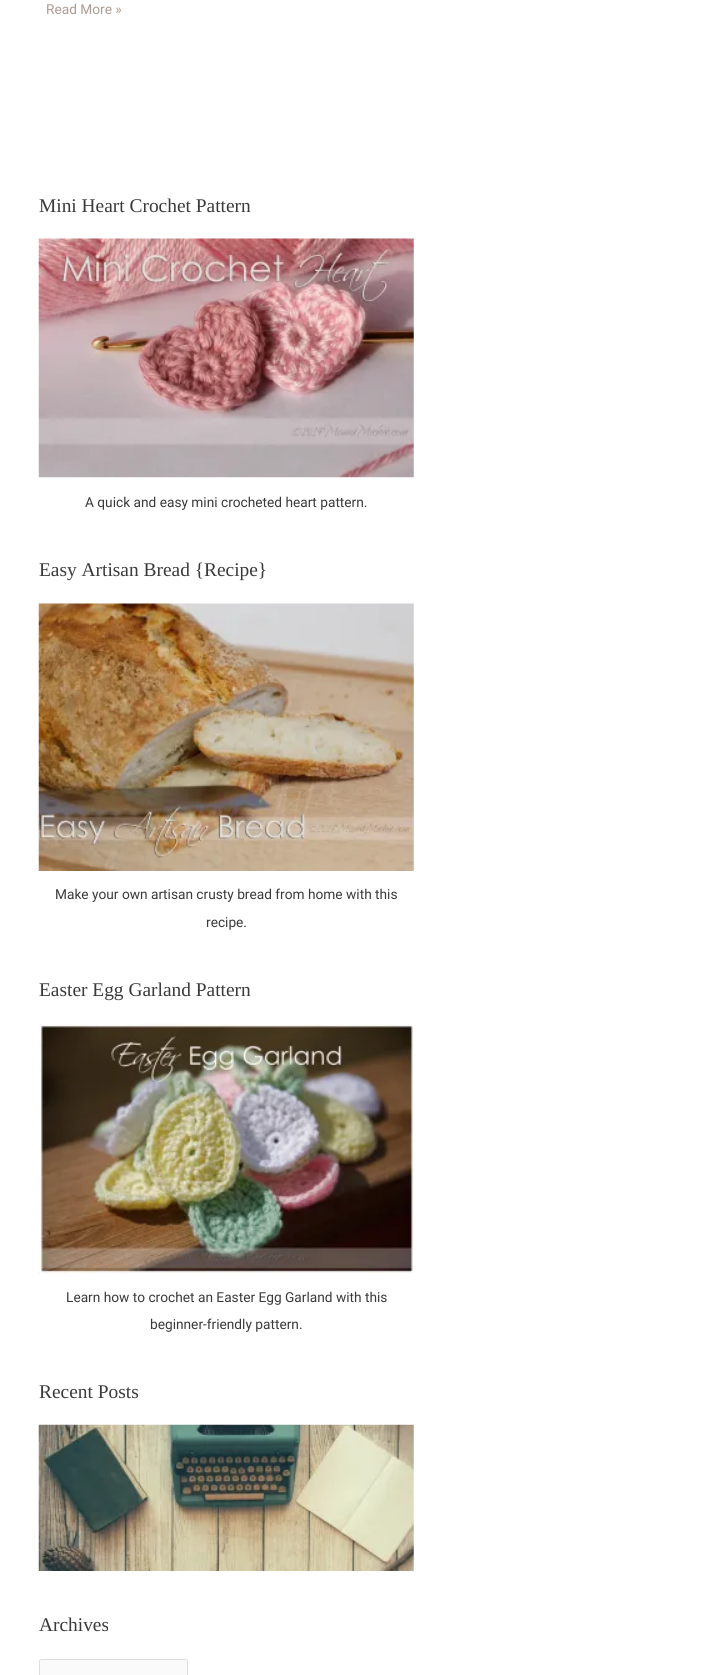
#include <cairo.h>
#include <math.h>
#include <stddef.h>


static void round_rect(cairo_t *cr, double x, double y, double w, double h, double r) {
    cairo_new_sub_path(cr);
    cairo_arc(cr, x + w - r, y + h - r, r, 0, M_PI / 2);
    cairo_arc(cr, x + r, y + h - r, r, M_PI / 2, M_PI);
    cairo_arc(cr, x + r, y + r, r, M_PI, 1.5 * M_PI);
    cairo_arc(cr, x + w - r, y + r, r, 1.5 * M_PI, 2 * M_PI);
    cairo_close_path(cr);
}

static void picture(cairo_t *cr, const char *path, double x, double y, double w, double h) {
    cairo_surface_t *image = cairo_image_surface_create_from_png(path);
    cairo_save(cr);
    cairo_set_source_surface(cr, image, x, y);
    cairo_rectangle(cr, x, y, w, h);
    cairo_fill(cr);
    cairo_restore(cr);
    cairo_surface_destroy(image);
}

int main(void) {
    cairo_surface_t *surface = cairo_image_surface_create(CAIRO_FORMAT_RGB24, 723, 1675);
    cairo_t *cr = cairo_create(surface);
    cairo_font_options_t *options = cairo_font_options_create();
    cairo_font_options_set_hint_metrics(options, CAIRO_HINT_METRICS_OFF);
    cairo_font_options_set_hint_style(options, CAIRO_HINT_STYLE_NONE);
    cairo_set_font_options(cr, options);
    cairo_set_miter_limit(cr, 4);
    cairo_set_source_rgb(cr, 1, 1, 1);
    cairo_paint(cr);
    cairo_select_font_face(cr, "Roboto", CAIRO_FONT_SLANT_NORMAL, CAIRO_FONT_WEIGHT_NORMAL);
    cairo_set_font_size(cr, 13.7);
    cairo_set_source_rgb(cr, 0.678, 0.612, 0.573);
    cairo_move_to(cr, 46, 14);
    cairo_show_text(cr, "Read More »");
    cairo_select_font_face(cr, "Liberation Serif", CAIRO_FONT_SLANT_NORMAL, CAIRO_FONT_WEIGHT_NORMAL);
    cairo_set_font_size(cr, 19.4);
    cairo_set_source_rgb(cr, 0.227, 0.227, 0.227);
    cairo_move_to(cr, 39, 212);
    cairo_show_text(cr, "Mini Heart Crochet Pattern");
    picture(cr, "img1.png", 38, 238, 376, 240);
    cairo_select_font_face(cr, "Roboto", CAIRO_FONT_SLANT_NORMAL, CAIRO_FONT_WEIGHT_NORMAL);
    cairo_set_font_size(cr, 13.7);
    cairo_move_to(cr, 85, 507);
    cairo_show_text(cr, "A quick and easy mini crocheted heart pattern.");
    cairo_select_font_face(cr, "Liberation Serif", CAIRO_FONT_SLANT_NORMAL, CAIRO_FONT_WEIGHT_NORMAL);
    cairo_set_font_size(cr, 19.4);
    cairo_move_to(cr, 39, 576);
    cairo_show_text(cr, "Easy Artisan Bread {Recipe}");
    picture(cr, "img2.png", 38, 603, 376, 268);
    cairo_select_font_face(cr, "Roboto", CAIRO_FONT_SLANT_NORMAL, CAIRO_FONT_WEIGHT_NORMAL);
    cairo_set_font_size(cr, 13.7);
    cairo_move_to(cr, 55, 899);
    cairo_show_text(cr, "Make your own artisan crusty bread from home with this");
    cairo_move_to(cr, 206, 927);
    cairo_show_text(cr, "recipe.");
    cairo_select_font_face(cr, "Liberation Serif", CAIRO_FONT_SLANT_NORMAL, CAIRO_FONT_WEIGHT_NORMAL);
    cairo_set_font_size(cr, 19.4);
    cairo_move_to(cr, 39, 996);
    cairo_show_text(cr, "Easter Egg Garland Pattern");
    picture(cr, "img3.png", 38, 1023, 376, 251);
    cairo_select_font_face(cr, "Roboto", CAIRO_FONT_SLANT_NORMAL, CAIRO_FONT_WEIGHT_NORMAL);
    cairo_set_font_size(cr, 13.7);
    cairo_move_to(cr, 66, 1302);
    cairo_show_text(cr, "Learn how to crochet an Easter Egg Garland with this");
    cairo_move_to(cr, 150, 1329);
    cairo_show_text(cr, "beginner-friendly pattern.");
    cairo_select_font_face(cr, "Liberation Serif", CAIRO_FONT_SLANT_NORMAL, CAIRO_FONT_WEIGHT_NORMAL);
    cairo_set_font_size(cr, 19.4);
    cairo_move_to(cr, 39, 1398);
    cairo_show_text(cr, "Recent Posts");
    picture(cr, "img4.png", 38, 1424, 376, 147);
    cairo_move_to(cr, 39, 1631);
    cairo_show_text(cr, "Archives");
    cairo_set_source_rgb(cr, 0.98, 0.98, 0.98);
    round_rect(cr, 39.5, 1659.5, 148, 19, 2);
    cairo_fill_preserve(cr);
    cairo_set_source_rgb(cr, 0.867, 0.867, 0.867);
    cairo_set_line_width(cr, 1);
    cairo_stroke(cr);
    cairo_surface_write_to_png(surface, "page.png");
    cairo_font_options_destroy(options);
    cairo_destroy(cr);
    cairo_surface_destroy(surface);
    return 0;
}
